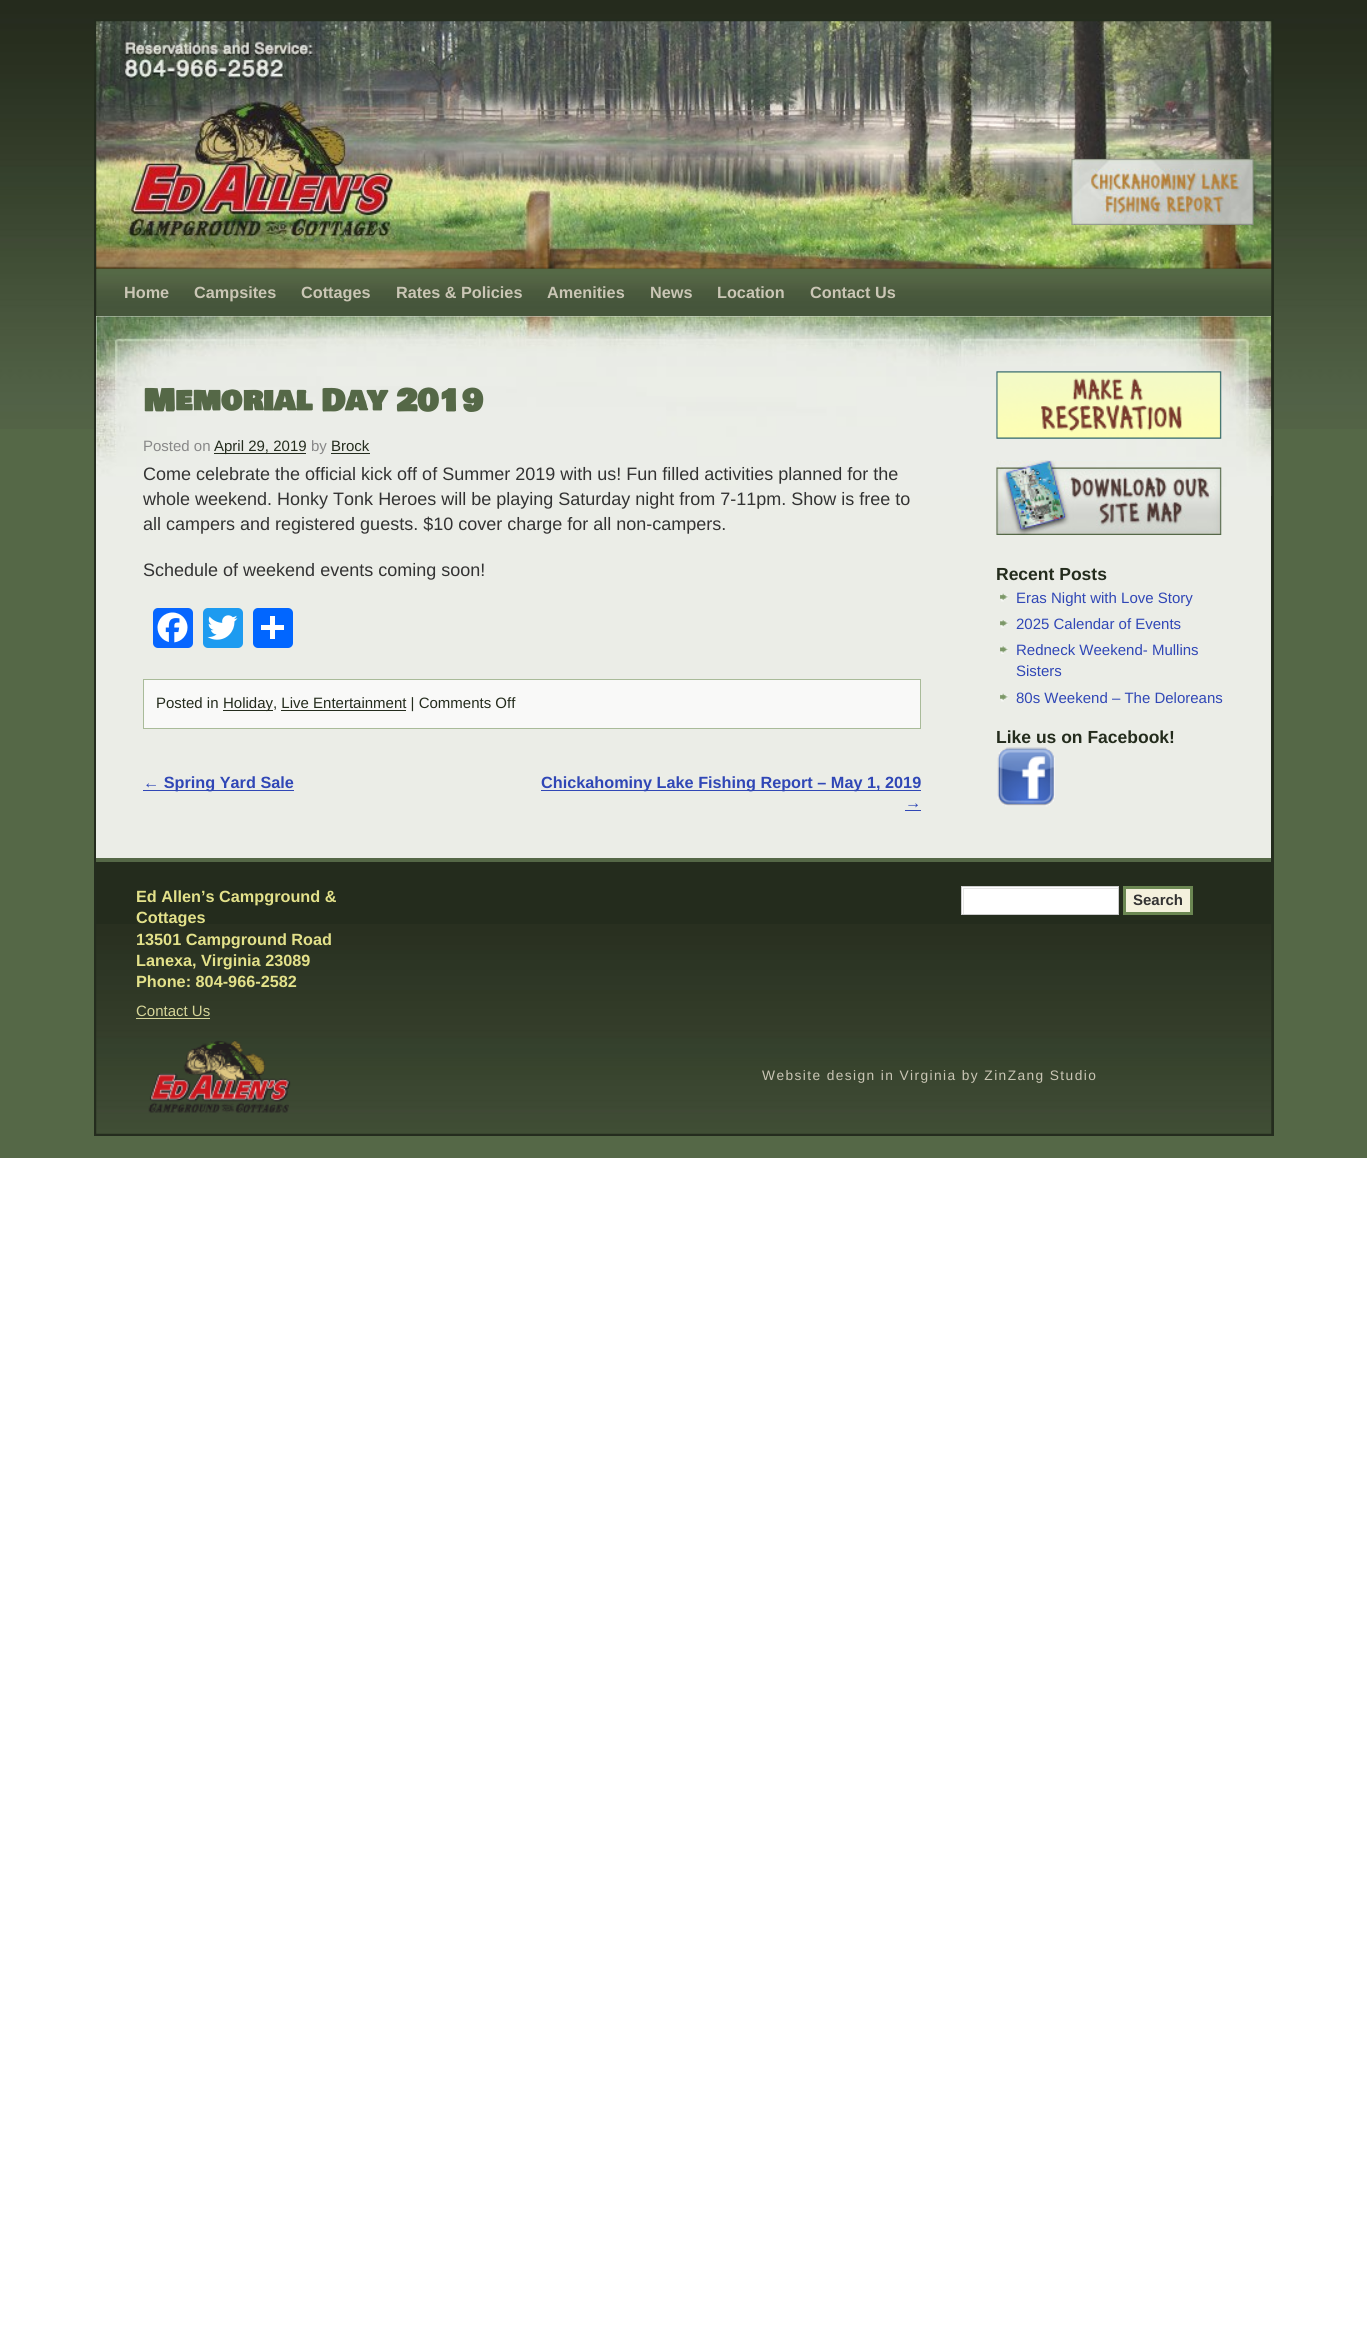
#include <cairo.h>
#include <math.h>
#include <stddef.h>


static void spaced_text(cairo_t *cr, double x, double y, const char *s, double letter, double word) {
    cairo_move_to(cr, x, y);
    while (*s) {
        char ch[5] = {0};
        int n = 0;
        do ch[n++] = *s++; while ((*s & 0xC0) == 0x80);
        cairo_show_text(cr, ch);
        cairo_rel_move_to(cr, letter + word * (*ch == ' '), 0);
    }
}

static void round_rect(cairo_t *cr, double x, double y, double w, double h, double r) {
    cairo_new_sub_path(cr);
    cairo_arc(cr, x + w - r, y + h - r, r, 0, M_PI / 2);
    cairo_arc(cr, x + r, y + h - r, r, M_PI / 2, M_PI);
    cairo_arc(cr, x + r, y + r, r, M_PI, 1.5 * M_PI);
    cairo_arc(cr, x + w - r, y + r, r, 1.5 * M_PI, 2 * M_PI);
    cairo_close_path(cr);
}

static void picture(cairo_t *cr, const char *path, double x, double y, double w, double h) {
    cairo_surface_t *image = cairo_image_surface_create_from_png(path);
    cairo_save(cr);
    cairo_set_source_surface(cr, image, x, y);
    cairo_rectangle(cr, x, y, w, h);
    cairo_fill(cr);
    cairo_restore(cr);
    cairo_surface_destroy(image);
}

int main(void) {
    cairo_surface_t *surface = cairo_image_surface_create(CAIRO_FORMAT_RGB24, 1367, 2349);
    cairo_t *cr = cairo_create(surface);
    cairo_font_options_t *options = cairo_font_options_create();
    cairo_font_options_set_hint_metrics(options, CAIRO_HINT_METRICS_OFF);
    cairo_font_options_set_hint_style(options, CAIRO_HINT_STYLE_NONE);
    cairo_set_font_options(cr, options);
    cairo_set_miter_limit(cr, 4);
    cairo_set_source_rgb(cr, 1, 1, 1);
    cairo_paint(cr);
    cairo_set_source_rgb(cr, 0.333, 0.408, 0.278);
    cairo_rectangle(cr, 0, 429, 1367, 729);
    cairo_fill(cr);
    picture(cr, "img1.png", 0, 0, 1367, 429);
    cairo_rectangle(cr, 95.5, 20.5, 1177, 1114);
    cairo_set_source_rgb(cr, 0.141, 0.173, 0.118);
    cairo_set_line_width(cr, 3);
    cairo_stroke(cr);
    picture(cr, "img2.png", 96, 21, 1176, 248);
    picture(cr, "img3.png", 1071, 158, 183, 67);
    picture(cr, "img4.png", 96, 268, 1176, 49);
    cairo_select_font_face(cr, "Liberation Sans", CAIRO_FONT_SLANT_NORMAL, CAIRO_FONT_WEIGHT_BOLD);
    cairo_set_font_size(cr, 16.25);
    cairo_set_source_rgb(cr, 0.792, 0.776, 0.71);
    cairo_move_to(cr, 124, 298);
    cairo_show_text(cr, "Home");
    cairo_move_to(cr, 194, 298);
    cairo_show_text(cr, "Campsites");
    cairo_move_to(cr, 301, 298);
    cairo_show_text(cr, "Cottages");
    cairo_move_to(cr, 396, 298);
    cairo_show_text(cr, "Rates & Policies");
    cairo_move_to(cr, 547, 298);
    cairo_show_text(cr, "Amenities");
    cairo_move_to(cr, 650, 298);
    cairo_show_text(cr, "News");
    cairo_move_to(cr, 717, 298);
    cairo_show_text(cr, "Location");
    cairo_move_to(cr, 810, 298);
    cairo_show_text(cr, "Contact Us");
    cairo_set_source_rgb(cr, 0.918, 0.929, 0.906);
    cairo_rectangle(cr, 96, 316, 1175, 542);
    cairo_fill(cr);
    picture(cr, "img5.png", 96, 316, 1176, 180);
    cairo_select_font_face(cr, "Bowlby One SC", CAIRO_FONT_SLANT_NORMAL, CAIRO_FONT_WEIGHT_BOLD);
    cairo_set_font_size(cr, 30);
    cairo_set_source_rgb(cr, 0.333, 0.408, 0.278);
    cairo_move_to(cr, 143, 411);
    cairo_show_text(cr, "Memorial Day 2019");
    cairo_select_font_face(cr, "Liberation Sans", CAIRO_FONT_SLANT_NORMAL, CAIRO_FONT_WEIGHT_NORMAL);
    cairo_set_font_size(cr, 15);
    cairo_set_source_rgb(cr, 0.533, 0.533, 0.533);
    cairo_move_to(cr, 143, 451);
    cairo_show_text(cr, "Posted on");
    cairo_set_source_rgb(cr, 0.141, 0.173, 0.114);
    cairo_rectangle(cr, 214, 453, 92, 1);
    cairo_fill(cr);
    cairo_move_to(cr, 214, 451);
    cairo_show_text(cr, "April 29, 2019");
    cairo_set_source_rgb(cr, 0.533, 0.533, 0.533);
    cairo_move_to(cr, 311, 451);
    cairo_show_text(cr, "by");
    cairo_set_source_rgb(cr, 0.141, 0.173, 0.114);
    cairo_move_to(cr, 331, 451);
    cairo_show_text(cr, "Brock");
    cairo_rectangle(cr, 331, 453, 39, 1);
    cairo_fill(cr);
    cairo_set_font_size(cr, 18);
    cairo_set_source_rgb(cr, 0.2, 0.2, 0.2);
    cairo_move_to(cr, 143, 480);
    cairo_show_text(cr, "Come celebrate the official kick off of Summer 2019 with us! Fun filled activities planned for the");
    cairo_move_to(cr, 143, 505);
    cairo_show_text(cr, "whole weekend. Honky Tonk Heroes will be playing Saturday night from 7-11pm. Show is free to");
    cairo_move_to(cr, 143, 530);
    cairo_show_text(cr, "all campers and registered guests. $10 cover charge for all non-campers.");
    cairo_move_to(cr, 143, 576);
    cairo_show_text(cr, "Schedule of weekend events coming soon!");
    cairo_set_source_rgb(cr, 0.031, 0.4, 1);
    round_rect(cr, 153, 608, 40, 40, 5);
    cairo_fill(cr);
    picture(cr, "img6.png", 157, 612, 31, 31);
    cairo_set_source_rgb(cr, 0.114, 0.608, 0.941);
    round_rect(cr, 203, 608, 40, 40, 5);
    cairo_fill(cr);
    picture(cr, "img7.png", 207, 615, 31, 25);
    cairo_set_source_rgb(cr, 0.004, 0.4, 1);
    round_rect(cr, 253, 608, 40, 40, 5);
    cairo_fill(cr);
    cairo_set_source_rgb(cr, 1, 1, 1);
    cairo_rectangle(cr, 270, 616, 5, 23);
    cairo_fill(cr);
    cairo_rectangle(cr, 261, 625, 23, 5);
    cairo_fill(cr);
    cairo_set_source_rgb(cr, 0.973, 0.976, 0.969);
    cairo_rectangle(cr, 143.5, 679.5, 777, 49);
    cairo_fill_preserve(cr);
    cairo_set_source_rgb(cr, 0.663, 0.733, 0.6);
    cairo_set_line_width(cr, 1);
    cairo_stroke(cr);
    cairo_set_font_size(cr, 15);
    cairo_set_source_rgb(cr, 0.141, 0.173, 0.114);
    cairo_move_to(cr, 156, 708);
    cairo_show_text(cr, "Posted in");
    cairo_rectangle(cr, 223, 710, 50, 1);
    cairo_fill(cr);
    cairo_move_to(cr, 223, 708);
    cairo_show_text(cr, "Holiday, Live Entertainment | Comments Off");
    cairo_rectangle(cr, 281, 710, 125, 1);
    cairo_fill(cr);
    cairo_set_source_rgb(cr, 0.188, 0.278, 0.714);
    cairo_rectangle(cr, 143, 790, 151, 1);
    cairo_fill(cr);
    cairo_select_font_face(cr, "Liberation Sans", CAIRO_FONT_SLANT_NORMAL, CAIRO_FONT_WEIGHT_BOLD);
    cairo_set_font_size(cr, 16.25);
    cairo_move_to(cr, 143, 788);
    cairo_show_text(cr, "← Spring Yard Sale");
    cairo_rectangle(cr, 541, 790, 380, 1);
    cairo_fill(cr);
    cairo_move_to(cr, 541, 788);
    cairo_show_text(cr, "Chickahominy Lake Fishing Report – May 1, 2019");
    cairo_move_to(cr, 905, 808);
    cairo_show_text(cr, "→");
    cairo_rectangle(cr, 905, 810, 16, 1);
    cairo_fill(cr);
    picture(cr, "img8.png", 996, 371, 226, 68);
    picture(cr, "img9.png", 996, 460, 226, 75);
    cairo_set_font_size(cr, 17.5);
    cairo_set_source_rgb(cr, 0.141, 0.173, 0.114);
    cairo_move_to(cr, 996, 580);
    cairo_show_text(cr, "Recent Posts");
    picture(cr, "img10.png", 1000, 593, 8, 9);
    cairo_select_font_face(cr, "Liberation Sans", CAIRO_FONT_SLANT_NORMAL, CAIRO_FONT_WEIGHT_NORMAL);
    cairo_set_font_size(cr, 15);
    cairo_set_source_rgb(cr, 0.188, 0.278, 0.714);
    cairo_move_to(cr, 1016, 603);
    cairo_show_text(cr, "Eras Night with Love Story");
    picture(cr, "img11.png", 1000, 620, 8, 8);
    cairo_move_to(cr, 1016, 629);
    cairo_show_text(cr, "2025 Calendar of Events");
    picture(cr, "img12.png", 1000, 646, 8, 8);
    cairo_move_to(cr, 1016, 655);
    cairo_show_text(cr, "Redneck Weekend- Mullins");
    cairo_move_to(cr, 1016, 676);
    cairo_show_text(cr, "Sisters");
    picture(cr, "img10.png", 1000, 693, 8, 9);
    cairo_move_to(cr, 1016, 703);
    cairo_show_text(cr, "80s Weekend – The Deloreans");
    cairo_select_font_face(cr, "Liberation Sans", CAIRO_FONT_SLANT_NORMAL, CAIRO_FONT_WEIGHT_BOLD);
    cairo_set_font_size(cr, 17.5);
    cairo_set_source_rgb(cr, 0.141, 0.173, 0.114);
    cairo_move_to(cr, 996, 743);
    cairo_show_text(cr, "Like us on Facebook!");
    picture(cr, "img13.png", 997, 747, 58, 60);
    cairo_rectangle(cr, 97, 862, 1174, 271);
    cairo_fill(cr);
    picture(cr, "img14.png", 96, 924, 1176, 210);
    picture(cr, "img15.png", 148, 1040, 143, 73);
    cairo_set_source_rgb(cr, 0.333, 0.408, 0.278);
    cairo_rectangle(cr, 96, 858, 1, 4);
    cairo_fill(cr);
    cairo_set_font_size(cr, 16.25);
    cairo_set_source_rgb(cr, 0.89, 0.882, 0.541);
    cairo_move_to(cr, 136, 902);
    cairo_show_text(cr, "Ed Allen’s Campground &");
    cairo_move_to(cr, 136, 923);
    cairo_show_text(cr, "Cottages");
    cairo_move_to(cr, 136, 945);
    cairo_show_text(cr, "13501 Campground Road");
    cairo_move_to(cr, 136, 966);
    cairo_show_text(cr, "Lanexa, Virginia 23089");
    cairo_move_to(cr, 136, 987);
    cairo_show_text(cr, "Phone: 804-966-2582");
    cairo_select_font_face(cr, "Liberation Sans", CAIRO_FONT_SLANT_NORMAL, CAIRO_FONT_WEIGHT_NORMAL);
    cairo_set_font_size(cr, 15);
    cairo_set_source_rgb(cr, 0.839, 0.835, 0.596);
    cairo_move_to(cr, 136, 1016);
    cairo_show_text(cr, "Contact Us");
    cairo_rectangle(cr, 136, 1018, 74, 1);
    cairo_fill(cr);
    cairo_set_source_rgb(cr, 1, 1, 1);
    cairo_rectangle(cr, 962, 887, 156, 27);
    cairo_fill(cr);
    cairo_save(cr);
    cairo_rectangle(cr, 963, 888, 155, 26);
    cairo_clip(cr);
    cairo_set_source_rgb(cr, 0.902, 0.902, 0.902);
    cairo_set_fill_rule(cr, CAIRO_FILL_RULE_EVEN_ODD);
    cairo_new_path(cr);
    cairo_move_to(cr, 839, 764);
    cairo_line_to(cr, 1241, 764);
    cairo_line_to(cr, 1241, 1038);
    cairo_line_to(cr, 839, 1038);
    cairo_close_path(cr);
    cairo_move_to(cr, 964, 889);
    cairo_line_to(cr, 1119, 889);
    cairo_line_to(cr, 1119, 915);
    cairo_line_to(cr, 964, 915);
    cairo_close_path(cr);
    cairo_fill(cr);
    cairo_restore(cr);
    cairo_rectangle(cr, 961.5, 886.5, 157, 28);
    cairo_set_source_rgb(cr, 0.8, 0.8, 0.8);
    cairo_stroke(cr);
    cairo_set_source_rgb(cr, 0.957, 0.945, 0.867);
    cairo_rectangle(cr, 1124.5, 887.5, 67, 26);
    cairo_fill_preserve(cr);
    cairo_set_source_rgb(cr, 0.42, 0.529, 0.322);
    cairo_set_line_width(cr, 3);
    cairo_stroke(cr);
    cairo_select_font_face(cr, "Liberation Sans", CAIRO_FONT_SLANT_NORMAL, CAIRO_FONT_WEIGHT_BOLD);
    cairo_set_source_rgb(cr, 0.2, 0.2, 0.2);
    cairo_move_to(cr, 1133, 905);
    cairo_show_text(cr, "Search");
    cairo_select_font_face(cr, "Liberation Sans", CAIRO_FONT_SLANT_NORMAL, CAIRO_FONT_WEIGHT_NORMAL);
    cairo_set_font_size(cr, 13.75);
    cairo_set_source_rgb(cr, 0.792, 0.776, 0.71);
    spaced_text(cr, 762, 1080, "Website design in Virginia by ZinZang Studio", 1.4, 0);
    cairo_surface_write_to_png(surface, "page.png");
    cairo_font_options_destroy(options);
    cairo_destroy(cr);
    cairo_surface_destroy(surface);
    return 0;
}
